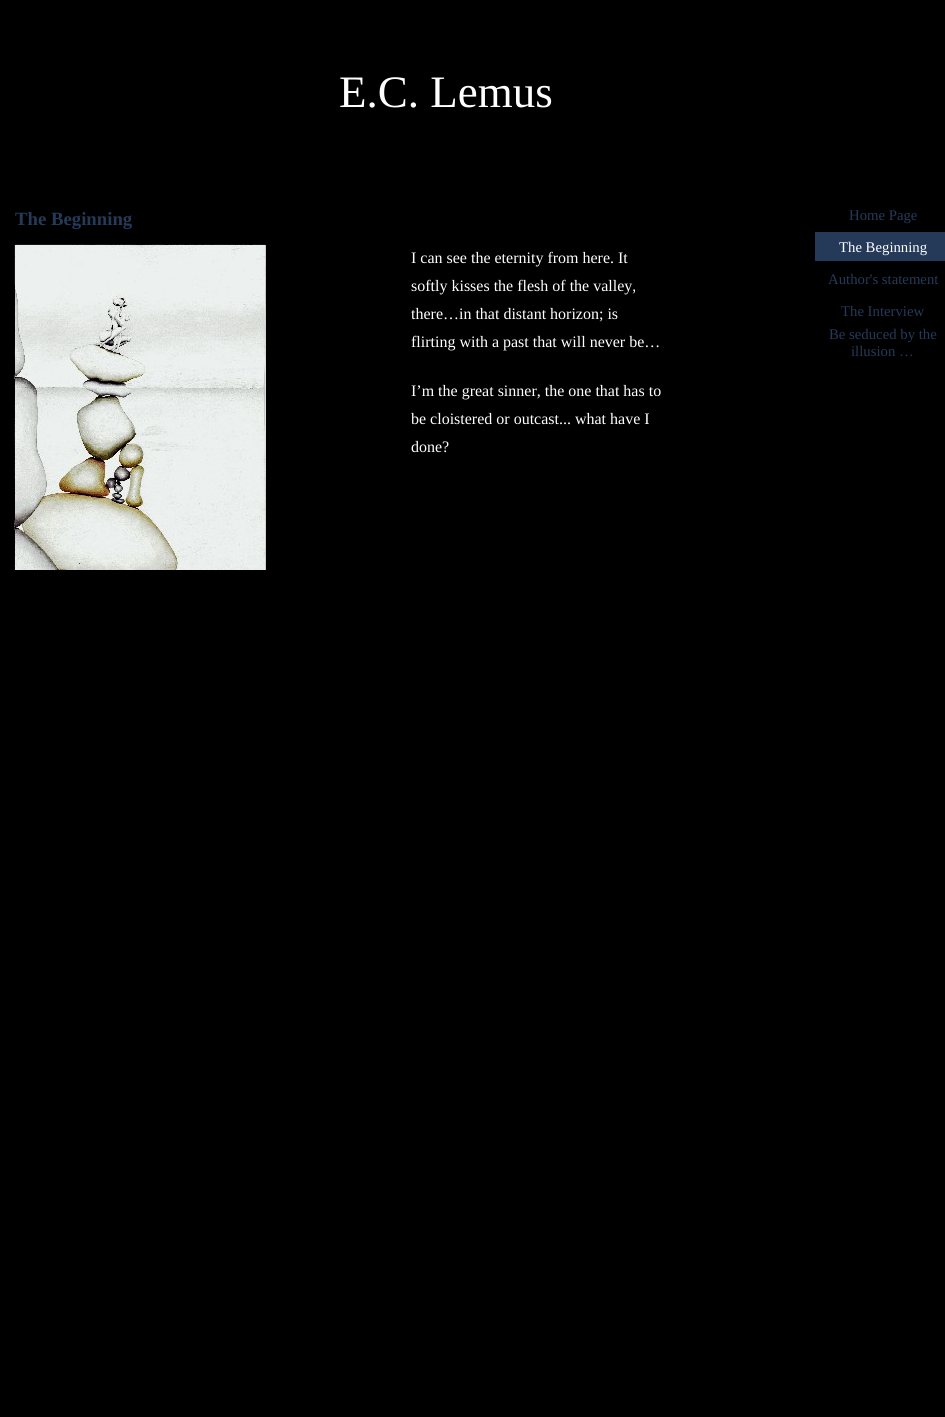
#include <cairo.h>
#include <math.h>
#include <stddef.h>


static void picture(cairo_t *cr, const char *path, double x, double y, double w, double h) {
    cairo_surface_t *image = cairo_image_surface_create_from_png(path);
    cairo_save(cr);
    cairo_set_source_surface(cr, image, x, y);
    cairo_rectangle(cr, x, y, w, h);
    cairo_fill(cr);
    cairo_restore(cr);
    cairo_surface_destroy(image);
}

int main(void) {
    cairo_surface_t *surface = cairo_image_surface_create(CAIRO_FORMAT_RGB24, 945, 1417);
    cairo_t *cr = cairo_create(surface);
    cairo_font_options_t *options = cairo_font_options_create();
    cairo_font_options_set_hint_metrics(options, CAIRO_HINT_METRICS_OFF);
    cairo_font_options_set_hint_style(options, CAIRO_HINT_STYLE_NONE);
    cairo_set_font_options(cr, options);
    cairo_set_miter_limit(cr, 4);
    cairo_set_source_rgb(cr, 0, 0, 0);
    cairo_paint(cr);
    cairo_select_font_face(cr, "Liberation Serif", CAIRO_FONT_SLANT_NORMAL, CAIRO_FONT_WEIGHT_NORMAL);
    cairo_set_font_size(cr, 45);
    cairo_set_source_rgb(cr, 1, 1, 1);
    cairo_move_to(cr, 339, 107);
    cairo_show_text(cr, "E.C. Lemus");
    cairo_select_font_face(cr, "Liberation Serif", CAIRO_FONT_SLANT_NORMAL, CAIRO_FONT_WEIGHT_BOLD);
    cairo_set_font_size(cr, 18.75);
    cairo_set_source_rgb(cr, 0.145, 0.227, 0.345);
    cairo_move_to(cr, 15, 225);
    cairo_show_text(cr, "The Beginning");
    picture(cr, "img1.png", 14, 244, 252, 326);
    cairo_select_font_face(cr, "Liberation Serif", CAIRO_FONT_SLANT_NORMAL, CAIRO_FONT_WEIGHT_NORMAL);
    cairo_set_font_size(cr, 16);
    cairo_set_source_rgb(cr, 1, 1, 1);
    cairo_move_to(cr, 411, 263);
    cairo_show_text(cr, "I can see the eternity from here. It");
    cairo_move_to(cr, 411, 291);
    cairo_show_text(cr, "softly kisses the flesh of the valley,");
    cairo_move_to(cr, 411, 319);
    cairo_show_text(cr, "there…in that distant horizon; is");
    cairo_move_to(cr, 411, 347);
    cairo_show_text(cr, "flirting with a past that will never be…");
    cairo_move_to(cr, 411, 396);
    cairo_show_text(cr, "I’m the great sinner, the one that has to");
    cairo_move_to(cr, 411, 424);
    cairo_show_text(cr, "be cloistered or outcast... what have I");
    cairo_move_to(cr, 411, 452);
    cairo_show_text(cr, "done?");
    cairo_set_font_size(cr, 14.75);
    cairo_set_source_rgb(cr, 0.145, 0.227, 0.345);
    cairo_move_to(cr, 849, 220);
    cairo_show_text(cr, "Home Page");
    cairo_rectangle(cr, 815, 232, 130, 29);
    cairo_fill(cr);
    cairo_set_source_rgb(cr, 1, 1, 1);
    cairo_move_to(cr, 839, 252);
    cairo_show_text(cr, "The Beginning");
    cairo_set_source_rgb(cr, 0.145, 0.227, 0.345);
    cairo_move_to(cr, 828, 284);
    cairo_show_text(cr, "Author's statement");
    cairo_move_to(cr, 841, 316);
    cairo_show_text(cr, "The Interview");
    cairo_move_to(cr, 829, 339);
    cairo_show_text(cr, "Be seduced by the");
    cairo_move_to(cr, 851, 356);
    cairo_show_text(cr, "illusion …");
    cairo_surface_write_to_png(surface, "page.png");
    cairo_font_options_destroy(options);
    cairo_destroy(cr);
    cairo_surface_destroy(surface);
    return 0;
}
